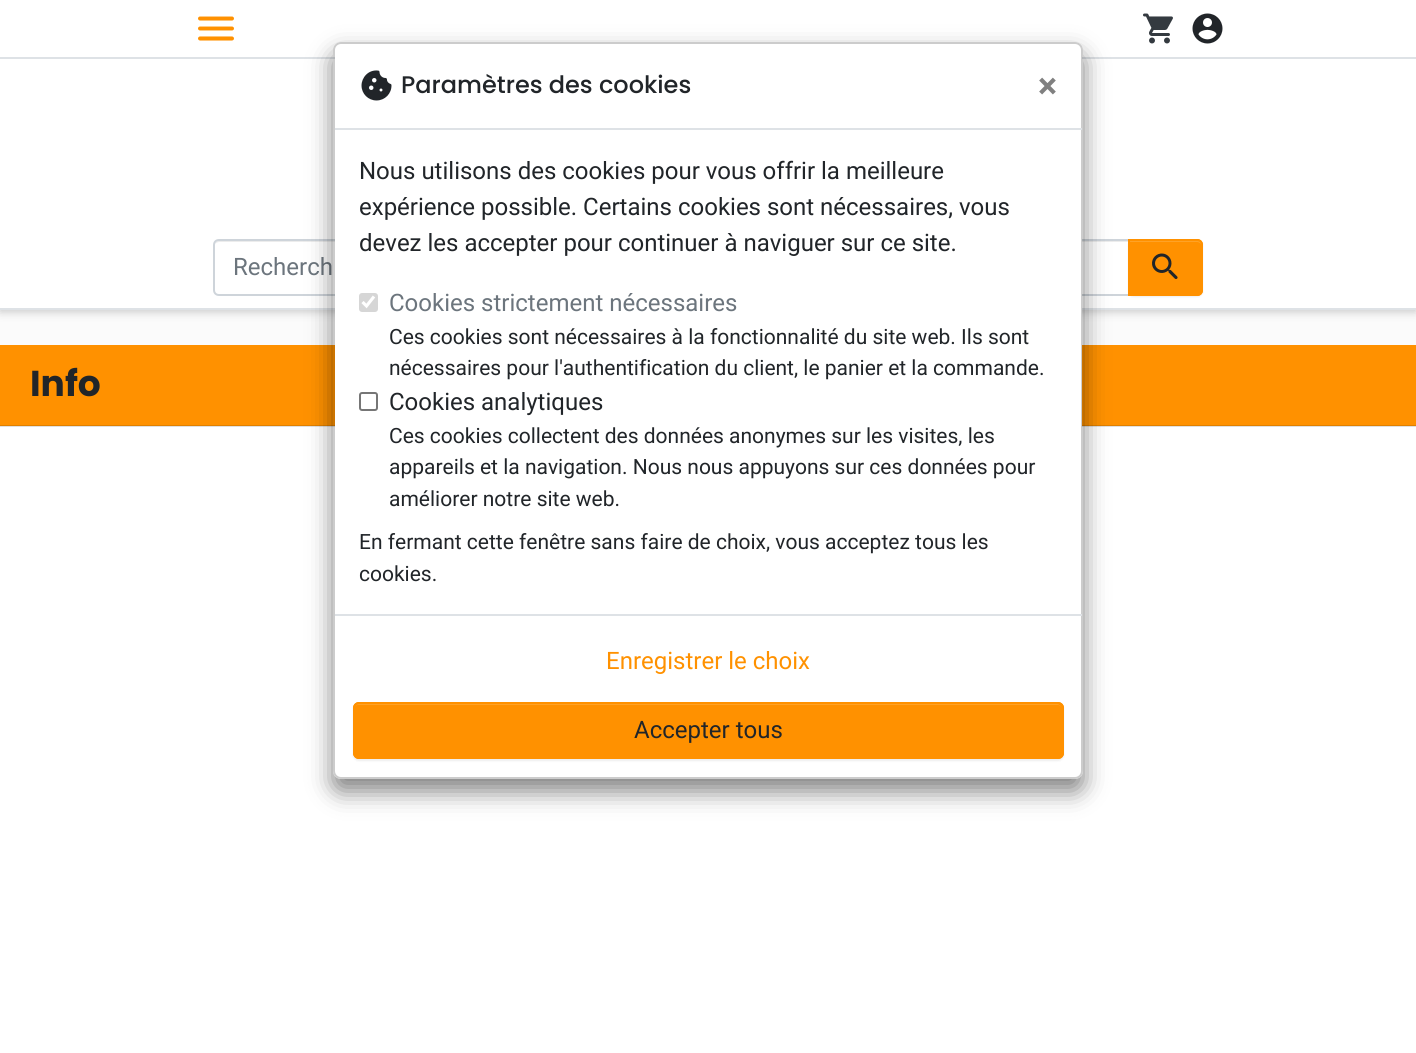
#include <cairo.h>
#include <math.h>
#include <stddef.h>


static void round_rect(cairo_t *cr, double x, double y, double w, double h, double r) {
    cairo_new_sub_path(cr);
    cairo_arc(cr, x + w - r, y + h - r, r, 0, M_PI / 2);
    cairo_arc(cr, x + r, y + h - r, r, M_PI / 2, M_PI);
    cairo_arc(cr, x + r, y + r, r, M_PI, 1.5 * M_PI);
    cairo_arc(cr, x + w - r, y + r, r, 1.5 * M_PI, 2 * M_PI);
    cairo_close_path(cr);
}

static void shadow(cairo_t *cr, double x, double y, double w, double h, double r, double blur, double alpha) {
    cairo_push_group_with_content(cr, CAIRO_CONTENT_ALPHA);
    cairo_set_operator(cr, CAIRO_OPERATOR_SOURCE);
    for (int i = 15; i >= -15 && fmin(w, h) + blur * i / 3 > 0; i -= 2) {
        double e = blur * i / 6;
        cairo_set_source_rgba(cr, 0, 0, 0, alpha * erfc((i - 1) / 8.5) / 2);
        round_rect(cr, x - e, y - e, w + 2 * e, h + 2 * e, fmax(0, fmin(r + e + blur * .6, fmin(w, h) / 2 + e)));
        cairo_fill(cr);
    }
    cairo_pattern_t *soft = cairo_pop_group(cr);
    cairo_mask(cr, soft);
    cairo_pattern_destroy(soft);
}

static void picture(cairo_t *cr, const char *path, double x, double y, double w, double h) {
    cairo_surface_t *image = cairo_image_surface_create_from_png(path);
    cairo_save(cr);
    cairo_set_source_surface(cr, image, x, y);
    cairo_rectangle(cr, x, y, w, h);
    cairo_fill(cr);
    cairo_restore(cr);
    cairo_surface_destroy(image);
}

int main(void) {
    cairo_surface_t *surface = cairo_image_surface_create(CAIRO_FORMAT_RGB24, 1416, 1053);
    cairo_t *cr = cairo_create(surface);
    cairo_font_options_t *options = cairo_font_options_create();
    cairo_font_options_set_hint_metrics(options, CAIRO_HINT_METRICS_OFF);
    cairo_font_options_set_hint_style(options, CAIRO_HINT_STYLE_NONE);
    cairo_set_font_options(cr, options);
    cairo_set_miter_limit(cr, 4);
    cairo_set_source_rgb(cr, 0.984, 0.984, 0.984);
    cairo_paint(cr);
    cairo_set_source_rgb(cr, 0, 0, 0);
    shadow(cr, 0, 3, 1416, 309, 0, 4.5, 0.2);
    cairo_set_source_rgb(cr, 1, 1, 1);
    cairo_rectangle(cr, 0, 0, 1416, 308);
    cairo_fill(cr);
    cairo_set_source_rgb(cr, 0.871, 0.886, 0.902);
    cairo_rectangle(cr, 0, 308, 1416, 2);
    cairo_fill(cr);
    cairo_rectangle(cr, 0, 57, 1416, 2);
    cairo_fill(cr);
    picture(cr, "img1.png", 198, 16, 36, 25);
    picture(cr, "img2.png", 1143, 13, 30, 31);
    picture(cr, "img3.png", 1192, 13, 31, 31);
    cairo_set_source_rgb(cr, 0.925, 0.925, 0.925);
    cairo_new_path(cr);
    cairo_move_to(cr, 219, 242);
    cairo_line_to(cr, 1128, 242);
    cairo_line_to(cr, 1128, 240);
    cairo_line_to(cr, 220, 240);
    cairo_curve_to(cr, 218, 240, 216, 242, 215, 244);
    cairo_curve_to(cr, 216, 243, 218, 242, 219, 242);
    cairo_close_path(cr);
    cairo_fill(cr);
    cairo_new_path(cr);
    cairo_move_to(cr, 219, 240);
    cairo_line_to(cr, 1129, 240);
    cairo_line_to(cr, 1129, 295);
    cairo_line_to(cr, 219, 295);
    cairo_curve_to(cr, 216, 295, 214, 293, 214, 290);
    cairo_line_to(cr, 214, 245);
    cairo_curve_to(cr, 214, 242, 216, 240, 219, 240);
    cairo_close_path(cr);
    cairo_set_source_rgb(cr, 0.808, 0.831, 0.855);
    cairo_stroke(cr);
    cairo_select_font_face(cr, "Roboto", CAIRO_FONT_SLANT_NORMAL, CAIRO_FONT_WEIGHT_NORMAL);
    cairo_set_font_size(cr, 24);
    cairo_set_source_rgb(cr, 0.424, 0.459, 0.49);
    cairo_move_to(cr, 233, 275);
    cairo_show_text(cr, "Recherch");
    cairo_set_source_rgb(cr, 0, 0, 0);
    shadow(cr, 1128, 240, 75, 57, 6, 1, 0.07);
    cairo_set_source_rgb(cr, 1, 0.569, 0);
    cairo_new_path(cr);
    cairo_move_to(cr, 1128, 239);
    cairo_line_to(cr, 1197, 239);
    cairo_curve_to(cr, 1200.5, 239, 1203, 241.5, 1203, 245);
    cairo_line_to(cr, 1203, 290);
    cairo_curve_to(cr, 1203, 293.5, 1200.5, 296, 1197, 296);
    cairo_line_to(cr, 1128, 296);
    cairo_close_path(cr);
    cairo_fill(cr);
    cairo_set_source_rgb(cr, 1, 0.635, 0.149);
    cairo_new_path(cr);
    cairo_move_to(cr, 1130, 242);
    cairo_line_to(cr, 1197, 242);
    cairo_curve_to(cr, 1199, 242, 1202, 244, 1202, 246);
    cairo_line_to(cr, 1202, 245);
    cairo_curve_to(cr, 1202, 242, 1200, 240, 1197, 240);
    cairo_line_to(cr, 1130, 240);
    cairo_close_path(cr);
    cairo_fill(cr);
    cairo_new_path(cr);
    cairo_move_to(cr, 1129, 240);
    cairo_line_to(cr, 1197, 240);
    cairo_curve_to(cr, 1200, 240, 1202, 242, 1202, 245);
    cairo_line_to(cr, 1202, 290);
    cairo_curve_to(cr, 1202, 293, 1200, 295, 1197, 295);
    cairo_line_to(cr, 1129, 295);
    cairo_close_path(cr);
    cairo_set_source_rgb(cr, 1, 0.569, 0);
    cairo_stroke(cr);
    picture(cr, "img4.png", 1152, 253, 26, 26);
    cairo_set_source_rgb(cr, 1, 1, 1);
    cairo_rectangle(cr, 0, 427, 1416, 626);
    cairo_fill(cr);
    cairo_set_source_rgb(cr, 0.878, 0.878, 0.878);
    cairo_rectangle(cr, 0, 426, 1416, 1);
    cairo_fill(cr);
    cairo_set_source_rgb(cr, 1, 0.569, 0);
    cairo_rectangle(cr, 0, 345, 1416, 80);
    cairo_fill(cr);
    cairo_set_source_rgb(cr, 0.878, 0.502, 0);
    cairo_rectangle(cr, 0, 425, 1416, 1);
    cairo_fill(cr);
    cairo_select_font_face(cr, "Poppins", CAIRO_FONT_SLANT_NORMAL, CAIRO_FONT_WEIGHT_BOLD);
    cairo_set_font_size(cr, 36);
    cairo_set_source_rgb(cr, 0.129, 0.145, 0.161);
    cairo_move_to(cr, 30, 396);
    cairo_show_text(cr, "Info");
    cairo_save(cr);
    cairo_set_fill_rule(cr, CAIRO_FILL_RULE_EVEN_ODD);
    cairo_new_path(cr);
    cairo_move_to(cr, 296, 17);
    cairo_line_to(cr, 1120, 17);
    cairo_line_to(cr, 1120, 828);
    cairo_line_to(cr, 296, 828);
    cairo_close_path(cr);
    cairo_move_to(cr, 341, 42);
    cairo_line_to(cr, 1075, 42);
    cairo_curve_to(cr, 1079.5, 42, 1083, 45.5, 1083, 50);
    cairo_line_to(cr, 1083, 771);
    cairo_curve_to(cr, 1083, 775.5, 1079.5, 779, 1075, 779);
    cairo_line_to(cr, 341, 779);
    cairo_curve_to(cr, 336.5, 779, 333, 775.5, 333, 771);
    cairo_line_to(cr, 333, 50);
    cairo_curve_to(cr, 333, 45.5, 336.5, 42, 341, 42);
    cairo_close_path(cr);
    cairo_clip(cr);
    cairo_set_source_rgb(cr, 0, 0, 0);
    shadow(cr, 333, 54, 750, 737, 8, 12, 0.5);
    cairo_restore(cr);
    cairo_set_source_rgb(cr, 1, 1, 1);
    round_rect(cr, 335, 44, 747, 733, 6);
    cairo_fill(cr);
    round_rect(cr, 334, 43, 748, 735, 7);
    cairo_set_source_rgba(cr, 0, 0, 0, 0.2);
    cairo_stroke(cr);
    cairo_set_source_rgb(cr, 0.871, 0.886, 0.902);
    cairo_rectangle(cr, 335, 128, 747, 2);
    cairo_fill(cr);
    picture(cr, "img5.png", 361, 70, 31, 31);
    cairo_select_font_face(cr, "Poppins Medium", CAIRO_FONT_SLANT_NORMAL, CAIRO_FONT_WEIGHT_NORMAL);
    cairo_set_font_size(cr, 24);
    cairo_set_source_rgb(cr, 0.129, 0.145, 0.161);
    cairo_move_to(cr, 401, 93);
    cairo_show_text(cr, "Paramètres des cookies");
    cairo_select_font_face(cr, "Roboto", CAIRO_FONT_SLANT_NORMAL, CAIRO_FONT_WEIGHT_BOLD);
    cairo_set_font_size(cr, 36);
    cairo_set_source_rgb(cr, 0.502, 0.502, 0.502);
    cairo_move_to(cr, 1038, 98);
    cairo_show_text(cr, "×");
    cairo_select_font_face(cr, "Roboto", CAIRO_FONT_SLANT_NORMAL, CAIRO_FONT_WEIGHT_NORMAL);
    cairo_set_font_size(cr, 24);
    cairo_set_source_rgb(cr, 0.129, 0.145, 0.161);
    cairo_move_to(cr, 359, 179);
    cairo_show_text(cr, "Nous utilisons des cookies pour vous offrir la meilleure");
    cairo_move_to(cr, 359, 215);
    cairo_show_text(cr, "expérience possible. Certains cookies sont nécessaires, vous");
    cairo_move_to(cr, 359, 251);
    cairo_show_text(cr, "devez les accepter pour continuer à naviguer sur ce site.");
    cairo_set_source_rgb(cr, 0.839, 0.839, 0.839);
    round_rect(cr, 359, 293, 19, 19, 3);
    cairo_fill(cr);
    cairo_new_path(cr);
    cairo_move_to(cr, 362.5, 302);
    cairo_line_to(cr, 366.5, 306);
    cairo_line_to(cr, 374, 296.5);
    cairo_set_source_rgb(cr, 1, 1, 1);
    cairo_set_line_width(cr, 3.1);
    cairo_stroke(cr);
    cairo_set_source_rgb(cr, 0.424, 0.459, 0.49);
    cairo_move_to(cr, 389, 311);
    cairo_show_text(cr, "Cookies strictement nécessaires");
    cairo_set_font_size(cr, 21);
    cairo_set_source_rgb(cr, 0.129, 0.145, 0.161);
    cairo_move_to(cr, 389, 344);
    cairo_show_text(cr, "Ces cookies sont nécessaires à la fonctionnalité du site web. Ils sont");
    cairo_move_to(cr, 389, 375);
    cairo_show_text(cr, "nécessaires pour l'authentification du client, le panier et la commande.");
    round_rect(cr, 360, 393, 17, 17, 2);
    cairo_set_source_rgb(cr, 0.463, 0.463, 0.463);
    cairo_set_line_width(cr, 2);
    cairo_stroke(cr);
    cairo_set_font_size(cr, 24);
    cairo_set_source_rgb(cr, 0.129, 0.145, 0.161);
    cairo_move_to(cr, 389, 410);
    cairo_show_text(cr, "Cookies analytiques");
    cairo_set_font_size(cr, 21);
    cairo_move_to(cr, 389, 443);
    cairo_show_text(cr, "Ces cookies collectent des données anonymes sur les visites, les");
    cairo_move_to(cr, 389, 474);
    cairo_show_text(cr, "appareils et la navigation. Nous nous appuyons sur ces données pour");
    cairo_move_to(cr, 389, 506);
    cairo_show_text(cr, "améliorer notre site web.");
    cairo_move_to(cr, 359, 549);
    cairo_show_text(cr, "En fermant cette fenêtre sans faire de choix, vous acceptez tous les");
    cairo_move_to(cr, 359, 581);
    cairo_show_text(cr, "cookies.");
    cairo_set_source_rgb(cr, 0.871, 0.886, 0.902);
    cairo_rectangle(cr, 335, 614, 747, 2);
    cairo_fill(cr);
    cairo_set_font_size(cr, 24);
    cairo_set_source_rgb(cr, 1, 0.569, 0);
    cairo_move_to(cr, 606, 669);
    cairo_show_text(cr, "Enregistrer le choix");
    cairo_set_source_rgb(cr, 0, 0, 0);
    shadow(cr, 353, 704, 711, 57, 6, 1, 0.07);
    cairo_set_source_rgb(cr, 1, 0.569, 0);
    round_rect(cr, 353, 702, 711, 57, 6);
    cairo_fill(cr);
    cairo_set_source_rgb(cr, 1, 0.635, 0.149);
    cairo_new_path(cr);
    cairo_move_to(cr, 358, 705);
    cairo_line_to(cr, 1058, 705);
    cairo_curve_to(cr, 1060, 705, 1062, 707, 1062, 710);
    cairo_curve_to(cr, 1062, 707, 1060, 704, 1057, 704);
    cairo_line_to(cr, 359, 704);
    cairo_curve_to(cr, 356, 704, 354, 707, 354, 710);
    cairo_curve_to(cr, 354, 707, 356, 705, 358, 705);
    cairo_close_path(cr);
    cairo_fill(cr);
    round_rect(cr, 354, 703, 709, 55, 5);
    cairo_set_source_rgb(cr, 1, 0.569, 0);
    cairo_stroke(cr);
    cairo_set_source_rgb(cr, 0.129, 0.145, 0.161);
    cairo_move_to(cr, 634, 738);
    cairo_show_text(cr, "Accepter tous");
    cairo_surface_write_to_png(surface, "page.png");
    cairo_font_options_destroy(options);
    cairo_destroy(cr);
    cairo_surface_destroy(surface);
    return 0;
}
